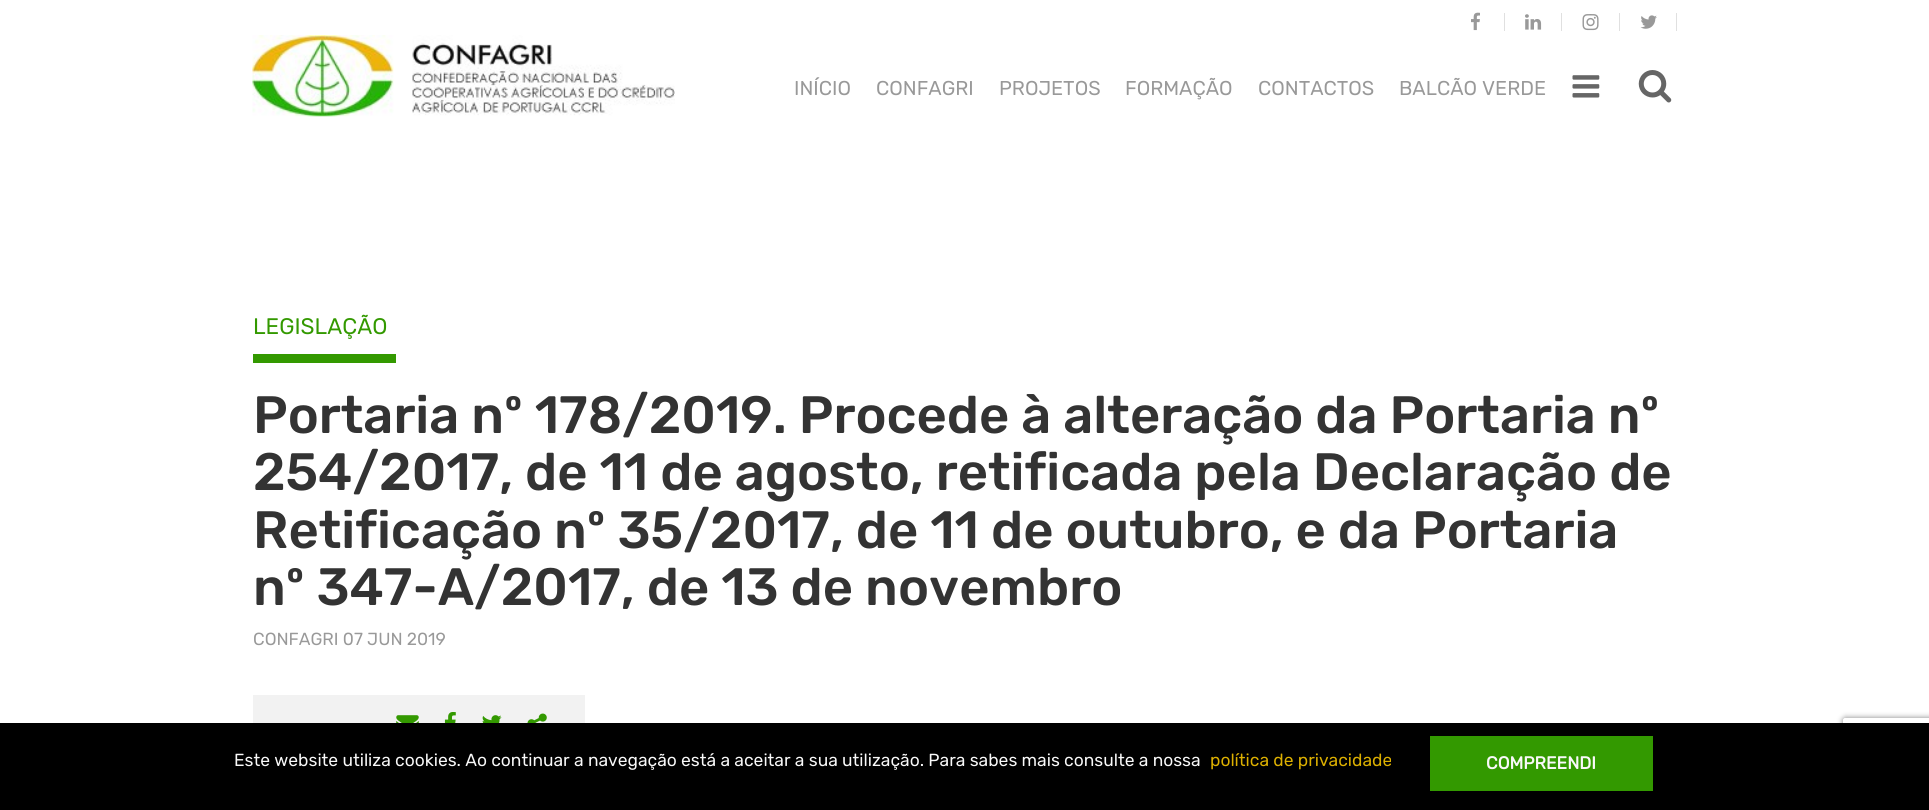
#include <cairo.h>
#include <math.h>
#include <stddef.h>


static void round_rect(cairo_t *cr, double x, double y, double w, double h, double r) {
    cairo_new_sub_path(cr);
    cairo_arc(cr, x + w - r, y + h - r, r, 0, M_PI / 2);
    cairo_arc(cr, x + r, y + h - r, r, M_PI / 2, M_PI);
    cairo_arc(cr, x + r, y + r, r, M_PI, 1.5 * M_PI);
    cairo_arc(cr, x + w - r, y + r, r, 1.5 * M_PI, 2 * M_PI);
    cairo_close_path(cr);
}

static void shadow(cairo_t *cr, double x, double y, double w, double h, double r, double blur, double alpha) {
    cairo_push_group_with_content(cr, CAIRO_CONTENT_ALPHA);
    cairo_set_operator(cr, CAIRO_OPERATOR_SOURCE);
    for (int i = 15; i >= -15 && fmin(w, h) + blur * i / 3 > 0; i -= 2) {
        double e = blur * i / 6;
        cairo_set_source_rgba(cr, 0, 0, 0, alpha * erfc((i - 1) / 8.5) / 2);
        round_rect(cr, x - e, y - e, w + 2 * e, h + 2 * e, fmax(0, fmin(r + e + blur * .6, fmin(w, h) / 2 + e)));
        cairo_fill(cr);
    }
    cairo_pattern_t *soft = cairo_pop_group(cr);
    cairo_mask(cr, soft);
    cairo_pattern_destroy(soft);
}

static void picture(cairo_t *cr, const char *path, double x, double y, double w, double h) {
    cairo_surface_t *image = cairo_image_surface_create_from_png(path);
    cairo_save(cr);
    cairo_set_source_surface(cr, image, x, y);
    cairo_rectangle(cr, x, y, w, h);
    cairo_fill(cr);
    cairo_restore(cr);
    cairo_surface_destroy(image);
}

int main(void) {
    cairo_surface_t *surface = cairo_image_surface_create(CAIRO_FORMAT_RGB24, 1929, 810);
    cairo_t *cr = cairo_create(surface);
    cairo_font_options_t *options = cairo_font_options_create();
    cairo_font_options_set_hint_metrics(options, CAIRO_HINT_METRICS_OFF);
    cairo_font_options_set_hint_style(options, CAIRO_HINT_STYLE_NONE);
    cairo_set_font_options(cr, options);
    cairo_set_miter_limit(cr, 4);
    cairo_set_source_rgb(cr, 1, 1, 1);
    cairo_paint(cr);
    cairo_set_source_rgb(cr, 0.878, 0.878, 0.878);
    cairo_rectangle(cr, 1504, 13, 1, 18);
    cairo_fill(cr);
    picture(cr, "img1.png", 1471, 12, 9, 19);
    cairo_rectangle(cr, 1561, 13, 1, 18);
    cairo_fill(cr);
    picture(cr, "img2.png", 1525, 14, 17, 16);
    cairo_rectangle(cr, 1619, 13, 1, 18);
    cairo_fill(cr);
    picture(cr, "img3.png", 1582, 14, 17, 17);
    cairo_rectangle(cr, 1676, 13, 1, 18);
    cairo_fill(cr);
    picture(cr, "img4.png", 1640, 15, 17, 14);
    picture(cr, "img5.png", 252, 35, 423, 82);
    cairo_select_font_face(cr, "Rubik", CAIRO_FONT_SLANT_NORMAL, CAIRO_FONT_WEIGHT_NORMAL);
    cairo_set_font_size(cr, 20);
    cairo_set_source_rgb(cr, 0.6, 0.6, 0.6);
    cairo_move_to(cr, 794, 95);
    cairo_show_text(cr, "INÍCIO");
    cairo_move_to(cr, 876, 95);
    cairo_show_text(cr, "CONFAGRI");
    cairo_move_to(cr, 999, 95);
    cairo_show_text(cr, "PROJETOS");
    cairo_move_to(cr, 1125, 95);
    cairo_show_text(cr, "FORMAÇÃO");
    cairo_move_to(cr, 1258, 95);
    cairo_show_text(cr, "CONTACTOS");
    cairo_move_to(cr, 1399, 95);
    cairo_show_text(cr, "BALCÃO VERDE");
    picture(cr, "img6.png", 1572, 75, 28, 23);
    picture(cr, "img7.png", 1638, 70, 34, 33);
    cairo_set_font_size(cr, 22.5);
    cairo_set_source_rgb(cr, 0.2, 0.6, 0);
    cairo_move_to(cr, 253, 334);
    cairo_show_text(cr, "LEGISLAÇÃO");
    cairo_rectangle(cr, 253, 354, 143, 9);
    cairo_fill(cr);
    cairo_select_font_face(cr, "Rubik Medium", CAIRO_FONT_SLANT_NORMAL, CAIRO_FONT_WEIGHT_NORMAL);
    cairo_set_font_size(cr, 52.5);
    cairo_set_source_rgb(cr, 0.2, 0.2, 0.2);
    cairo_move_to(cr, 253, 433);
    cairo_show_text(cr, "Portaria nº 178/2019. Procede à alteração da Portaria nº");
    cairo_move_to(cr, 253, 490);
    cairo_show_text(cr, "254/2017, de 11 de agosto, retificada pela Declaração de");
    cairo_move_to(cr, 253, 548);
    cairo_show_text(cr, "Retificação nº 35/2017, de 11 de outubro, e da Portaria");
    cairo_move_to(cr, 253, 605);
    cairo_show_text(cr, "nº 347-A/2017, de 13 de novembro");
    cairo_select_font_face(cr, "Rubik", CAIRO_FONT_SLANT_NORMAL, CAIRO_FONT_WEIGHT_NORMAL);
    cairo_set_font_size(cr, 17.5);
    cairo_set_source_rgb(cr, 0.6, 0.6, 0.6);
    cairo_move_to(cr, 253, 645);
    cairo_show_text(cr, "CONFAGRI 07 JUN 2019");
    cairo_set_source_rgb(cr, 0.949, 0.949, 0.949);
    cairo_rectangle(cr, 253, 695, 332, 28);
    cairo_fill(cr);
    picture(cr, "img8.png", 396, 715, 23, 8);
    picture(cr, "img9.png", 444, 712, 12, 11);
    picture(cr, "img10.png", 482, 715, 20, 8);
    picture(cr, "img11.png", 527, 713, 20, 10);
    cairo_save(cr);
    cairo_set_fill_rule(cr, CAIRO_FILL_RULE_EVEN_ODD);
    cairo_new_path(cr);
    cairo_move_to(cr, 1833, 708);
    cairo_line_to(cr, 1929, 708);
    cairo_line_to(cr, 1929, 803);
    cairo_line_to(cr, 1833, 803);
    cairo_close_path(cr);
    cairo_move_to(cr, 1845.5, 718);
    cairo_line_to(cr, 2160.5, 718);
    cairo_curve_to(cr, 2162, 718, 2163, 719, 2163, 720.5);
    cairo_line_to(cr, 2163, 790.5);
    cairo_curve_to(cr, 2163, 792, 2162, 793, 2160.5, 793);
    cairo_line_to(cr, 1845.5, 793);
    cairo_curve_to(cr, 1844, 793, 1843, 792, 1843, 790.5);
    cairo_line_to(cr, 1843, 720.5);
    cairo_curve_to(cr, 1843, 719, 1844, 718, 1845.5, 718);
    cairo_close_path(cr);
    cairo_clip(cr);
    cairo_set_source_rgb(cr, 0.502, 0.502, 0.502);
    shadow(cr, 1843, 718, 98, 75, 2.5, 3, 1);
    cairo_restore(cr);
    cairo_set_source_rgb(cr, 0, 0, 0);
    cairo_rectangle(cr, 0, 723, 1929, 87);
    cairo_fill(cr);
    cairo_set_source_rgb(cr, 0.973, 0.973, 0.973);
    cairo_move_to(cr, 234, 766);
    cairo_show_text(cr, "Este website utiliza cookies. Ao continuar a navegação está a aceitar a sua utilização. Para sabes mais consulte a nossa");
    cairo_set_source_rgb(cr, 0.867, 0.69, 0);
    cairo_move_to(cr, 1210, 766);
    cairo_show_text(cr, "política de privacidade");
    cairo_set_source_rgb(cr, 0.2, 0.6, 0);
    cairo_rectangle(cr, 1430, 736, 223, 55);
    cairo_fill(cr);
    cairo_select_font_face(cr, "Rubik", CAIRO_FONT_SLANT_NORMAL, CAIRO_FONT_WEIGHT_BOLD);
    cairo_set_source_rgb(cr, 0.973, 0.973, 0.973);
    cairo_move_to(cr, 1486, 769);
    cairo_show_text(cr, "COMPREENDI");
    cairo_surface_write_to_png(surface, "page.png");
    cairo_font_options_destroy(options);
    cairo_destroy(cr);
    cairo_surface_destroy(surface);
    return 0;
}
